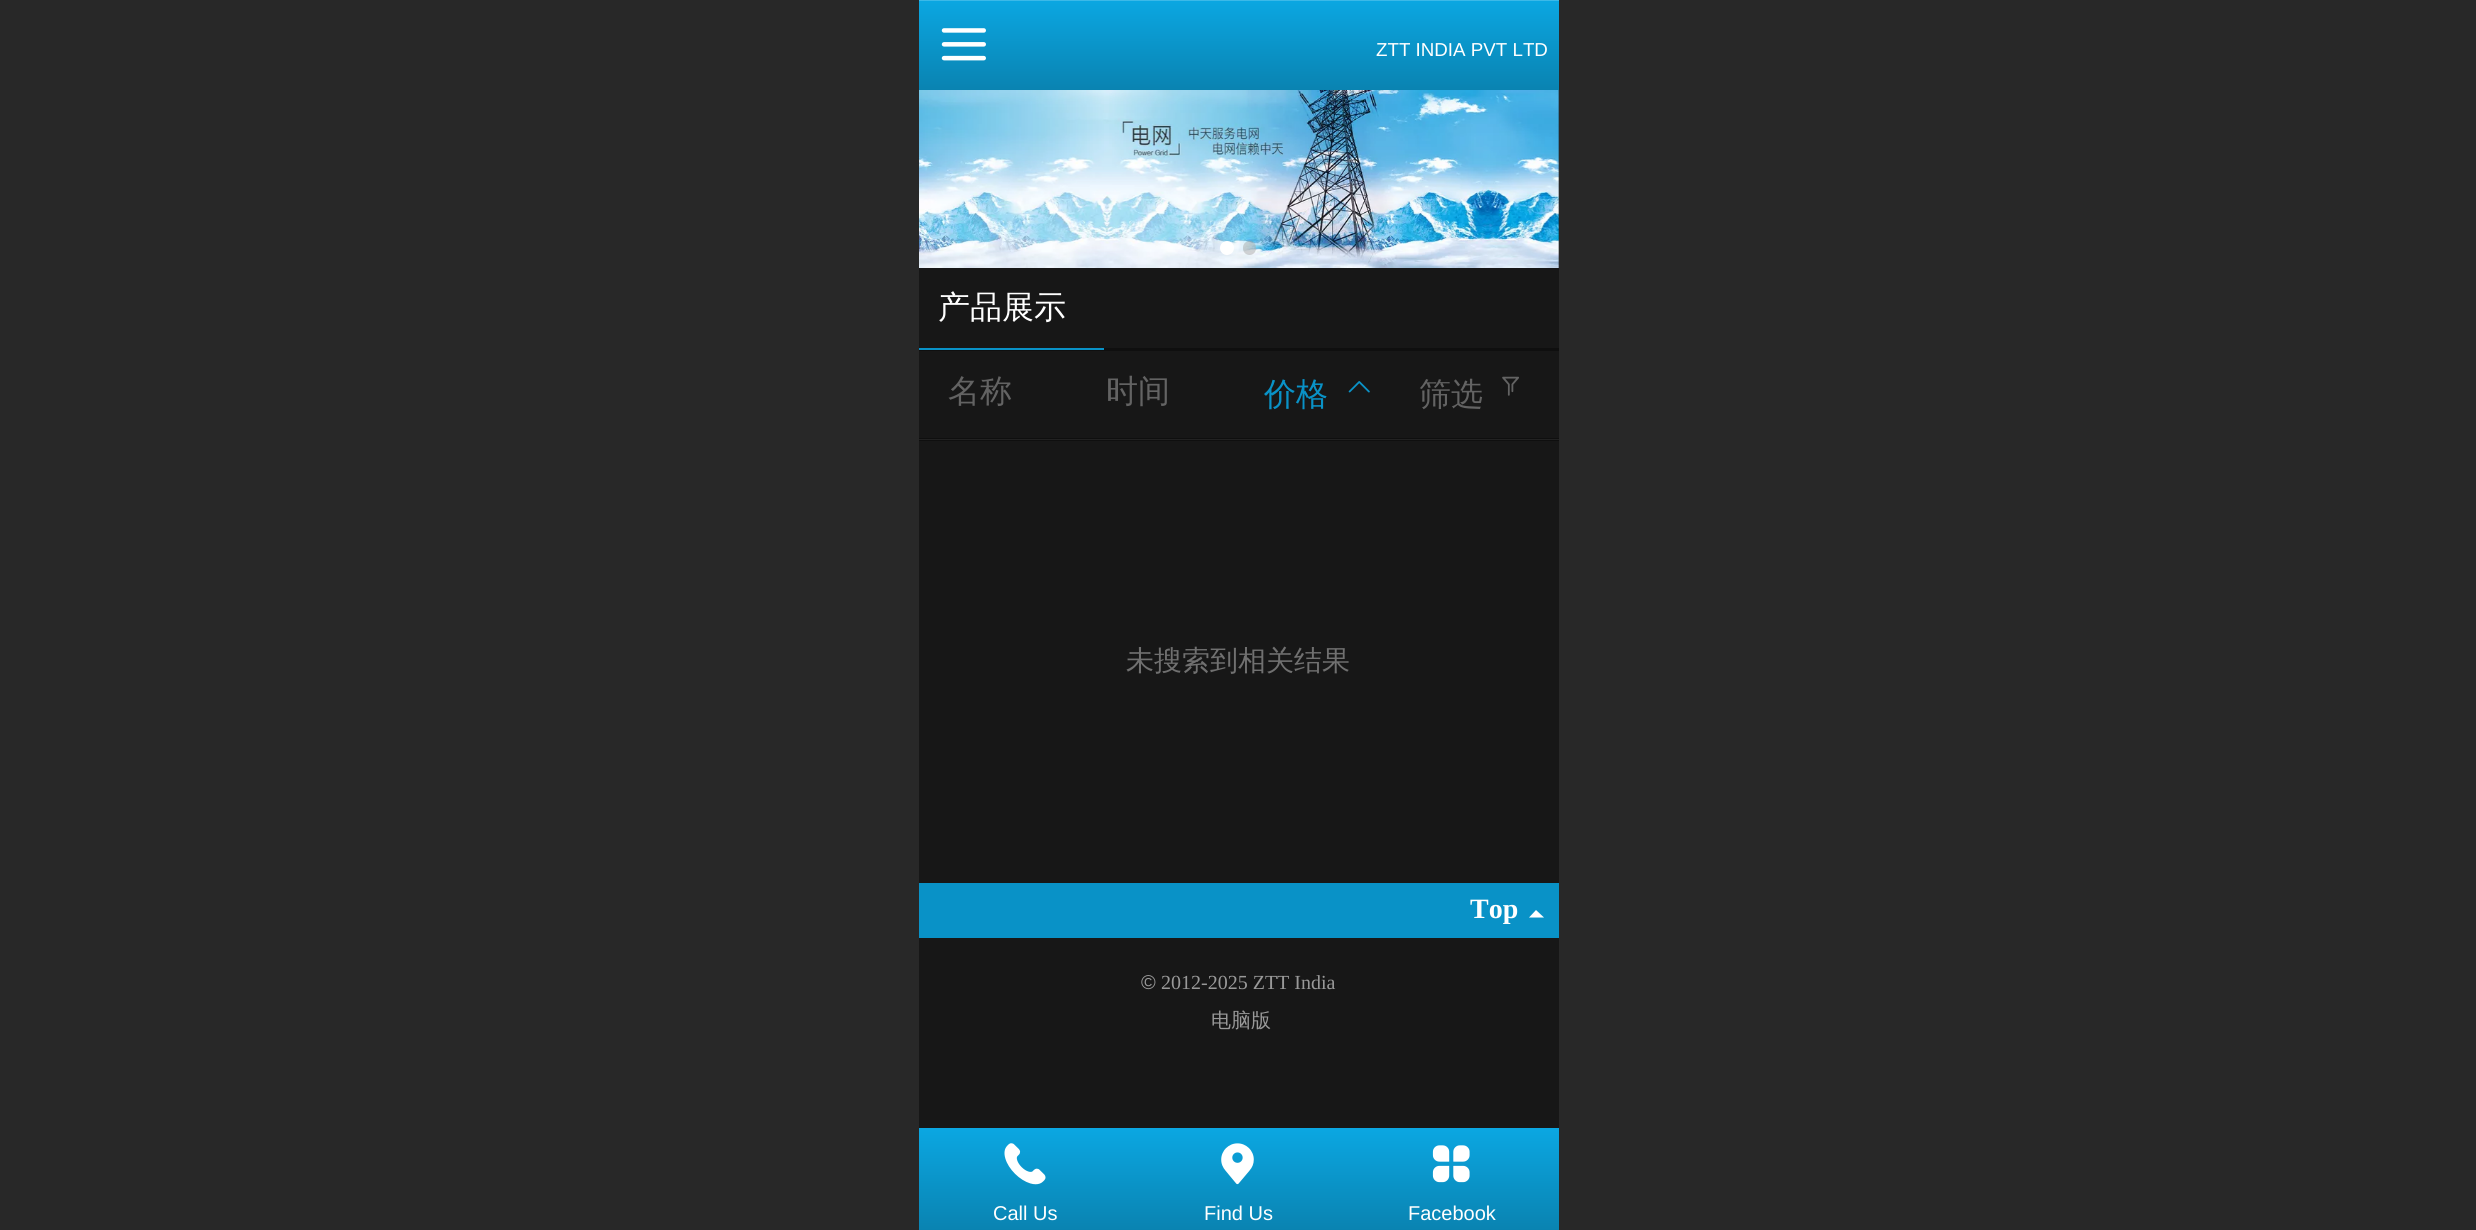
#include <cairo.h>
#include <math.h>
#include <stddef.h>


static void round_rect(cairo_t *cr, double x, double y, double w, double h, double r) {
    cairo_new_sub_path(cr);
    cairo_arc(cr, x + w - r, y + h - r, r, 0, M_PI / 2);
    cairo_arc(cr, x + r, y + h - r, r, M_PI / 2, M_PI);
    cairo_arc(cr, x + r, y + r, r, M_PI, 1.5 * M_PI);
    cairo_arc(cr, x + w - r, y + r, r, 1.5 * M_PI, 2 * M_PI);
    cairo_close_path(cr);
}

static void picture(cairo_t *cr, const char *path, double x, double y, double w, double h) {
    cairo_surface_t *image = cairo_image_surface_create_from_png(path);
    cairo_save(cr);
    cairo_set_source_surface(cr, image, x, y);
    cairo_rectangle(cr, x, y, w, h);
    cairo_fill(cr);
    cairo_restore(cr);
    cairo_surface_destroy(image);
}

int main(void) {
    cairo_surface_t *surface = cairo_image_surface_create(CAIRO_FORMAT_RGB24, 2476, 1230);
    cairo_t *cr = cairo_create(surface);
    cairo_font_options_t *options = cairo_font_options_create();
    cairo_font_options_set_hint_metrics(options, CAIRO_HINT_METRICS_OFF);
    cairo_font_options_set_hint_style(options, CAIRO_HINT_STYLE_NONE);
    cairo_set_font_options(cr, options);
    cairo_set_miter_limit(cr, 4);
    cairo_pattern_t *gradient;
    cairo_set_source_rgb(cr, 0.09, 0.09, 0.09);
    cairo_paint(cr);
    cairo_set_source_rgb(cr, 0.157, 0.157, 0.157);
    cairo_rectangle(cr, 0, 0, 919, 1230);
    cairo_fill(cr);
    gradient = cairo_pattern_create_linear(919, 90, 919, 0);
    cairo_pattern_add_color_stop_rgba(gradient, 0, 0.039, 0.514, 0.694, 1);
    cairo_pattern_add_color_stop_rgba(gradient, 1, 0.043, 0.655, 0.886, 1);
    cairo_set_source(cr, gradient);
    cairo_pattern_destroy(gradient);
    cairo_rectangle(cr, 919, 1, 640, 89);
    cairo_fill(cr);
    picture(cr, "img1.png", 941, 28, 45, 33);
    cairo_set_source_rgb(cr, 0.235, 0.725, 0.91);
    cairo_rectangle(cr, 919, 0, 640, 1);
    cairo_fill(cr);
    cairo_select_font_face(cr, "Liberation Sans", CAIRO_FONT_SLANT_NORMAL, CAIRO_FONT_WEIGHT_NORMAL);
    cairo_set_font_size(cr, 18.75);
    cairo_set_source_rgb(cr, 1, 1, 1);
    cairo_move_to(cr, 1376, 56);
    cairo_show_text(cr, "ZTT INDIA PVT LTD");
    picture(cr, "img2.png", 919, 90, 640, 178);
    cairo_arc(cr, 1227, 248, 7, 0, 2 * M_PI);
    cairo_fill(cr);
    cairo_set_source_rgba(cr, 0.671, 0.671, 0.671, 0.5);
    round_rect(cr, 1243, 241, 13, 14, 6.5);
    cairo_fill(cr);
    cairo_set_source_rgb(cr, 0.059, 0.059, 0.059);
    cairo_rectangle(cr, 919, 348, 640, 3);
    cairo_fill(cr);
    cairo_set_source_rgb(cr, 0.039, 0.573, 0.78);
    cairo_rectangle(cr, 919, 348, 185, 2);
    cairo_fill(cr);
    cairo_select_font_face(cr, "WenQuanYi Zen Hei Medium", CAIRO_FONT_SLANT_NORMAL, CAIRO_FONT_WEIGHT_NORMAL);
    cairo_set_font_size(cr, 32);
    cairo_set_source_rgb(cr, 1, 1, 1);
    cairo_move_to(cr, 938, 318);
    cairo_show_text(cr, "产品展示");
    cairo_set_source_rgb(cr, 0.388, 0.388, 0.388);
    cairo_move_to(cr, 948, 402);
    cairo_show_text(cr, "名称");
    cairo_move_to(cr, 1106, 402);
    cairo_show_text(cr, "时间");
    cairo_set_source_rgb(cr, 0.039, 0.573, 0.78);
    cairo_move_to(cr, 1264, 405);
    cairo_show_text(cr, "价格");
    picture(cr, "img3.png", 1348, 381, 22, 12);
    cairo_set_source_rgb(cr, 0.388, 0.388, 0.388);
    cairo_move_to(cr, 1419, 405);
    cairo_show_text(cr, "筛选");
    picture(cr, "img4.png", 1502, 376, 17, 20);
    cairo_set_source_rgb(cr, 0.059, 0.059, 0.059);
    cairo_rectangle(cr, 919, 438, 640, 3);
    cairo_fill(cr);
    cairo_set_source_rgb(cr, 0.133, 0.133, 0.133);
    cairo_rectangle(cr, 919, 439, 640, 1);
    cairo_fill(cr);
    cairo_set_font_size(cr, 28);
    cairo_set_source_rgb(cr, 0.439, 0.439, 0.439);
    cairo_move_to(cr, 1126, 670);
    cairo_show_text(cr, "未搜索到相关结果");
    cairo_set_source_rgb(cr, 0.039, 0.573, 0.78);
    cairo_rectangle(cr, 919, 883, 640, 55);
    cairo_fill(cr);
    cairo_select_font_face(cr, "Liberation Serif", CAIRO_FONT_SLANT_NORMAL, CAIRO_FONT_WEIGHT_BOLD);
    cairo_set_source_rgb(cr, 1, 1, 1);
    cairo_move_to(cr, 1470, 918);
    cairo_show_text(cr, "Top");
    cairo_new_path(cr);
    cairo_move_to(cr, 1544, 917.5);
    cairo_line_to(cr, 1529, 917.5);
    cairo_line_to(cr, 1536, 910);
    cairo_close_path(cr);
    cairo_fill(cr);
    cairo_select_font_face(cr, "Liberation Sans", CAIRO_FONT_SLANT_NORMAL, CAIRO_FONT_WEIGHT_NORMAL);
    cairo_set_font_size(cr, 20);
    cairo_set_source_rgb(cr, 0.6, 0.6, 0.6);
    cairo_move_to(cr, 1141, 989);
    cairo_show_text(cr, "©");
    cairo_select_font_face(cr, "Liberation Serif", CAIRO_FONT_SLANT_NORMAL, CAIRO_FONT_WEIGHT_NORMAL);
    cairo_move_to(cr, 1161, 989);
    cairo_show_text(cr, "2012-2025 ZTT India");
    cairo_select_font_face(cr, "WenQuanYi Zen Hei Medium", CAIRO_FONT_SLANT_NORMAL, CAIRO_FONT_WEIGHT_NORMAL);
    cairo_move_to(cr, 1211, 1027);
    cairo_show_text(cr, "电脑版");
    gradient = cairo_pattern_create_linear(919, 1230, 919, 1128);
    cairo_pattern_add_color_stop_rgba(gradient, 0, 0.039, 0.514, 0.694, 1);
    cairo_pattern_add_color_stop_rgba(gradient, 1, 0.043, 0.655, 0.886, 1);
    cairo_set_source(cr, gradient);
    cairo_pattern_destroy(gradient);
    cairo_rectangle(cr, 919, 1128, 640, 102);
    cairo_fill(cr);
    picture(cr, "img5.png", 1004, 1143, 42, 42);
    cairo_select_font_face(cr, "Liberation Sans", CAIRO_FONT_SLANT_NORMAL, CAIRO_FONT_WEIGHT_NORMAL);
    cairo_set_source_rgb(cr, 1, 1, 1);
    cairo_move_to(cr, 993, 1220);
    cairo_show_text(cr, "Call Us");
    picture(cr, "img6.png", 1221, 1143, 33, 42);
    cairo_move_to(cr, 1204, 1220);
    cairo_show_text(cr, "Find Us");
    picture(cr, "img7.png", 1432, 1145, 38, 38);
    cairo_move_to(cr, 1408, 1220);
    cairo_show_text(cr, "Facebook");
    cairo_set_source_rgb(cr, 0.157, 0.157, 0.157);
    cairo_rectangle(cr, 1559, 0, 917, 1230);
    cairo_fill(cr);
    cairo_surface_write_to_png(surface, "page.png");
    cairo_font_options_destroy(options);
    cairo_destroy(cr);
    cairo_surface_destroy(surface);
    return 0;
}
